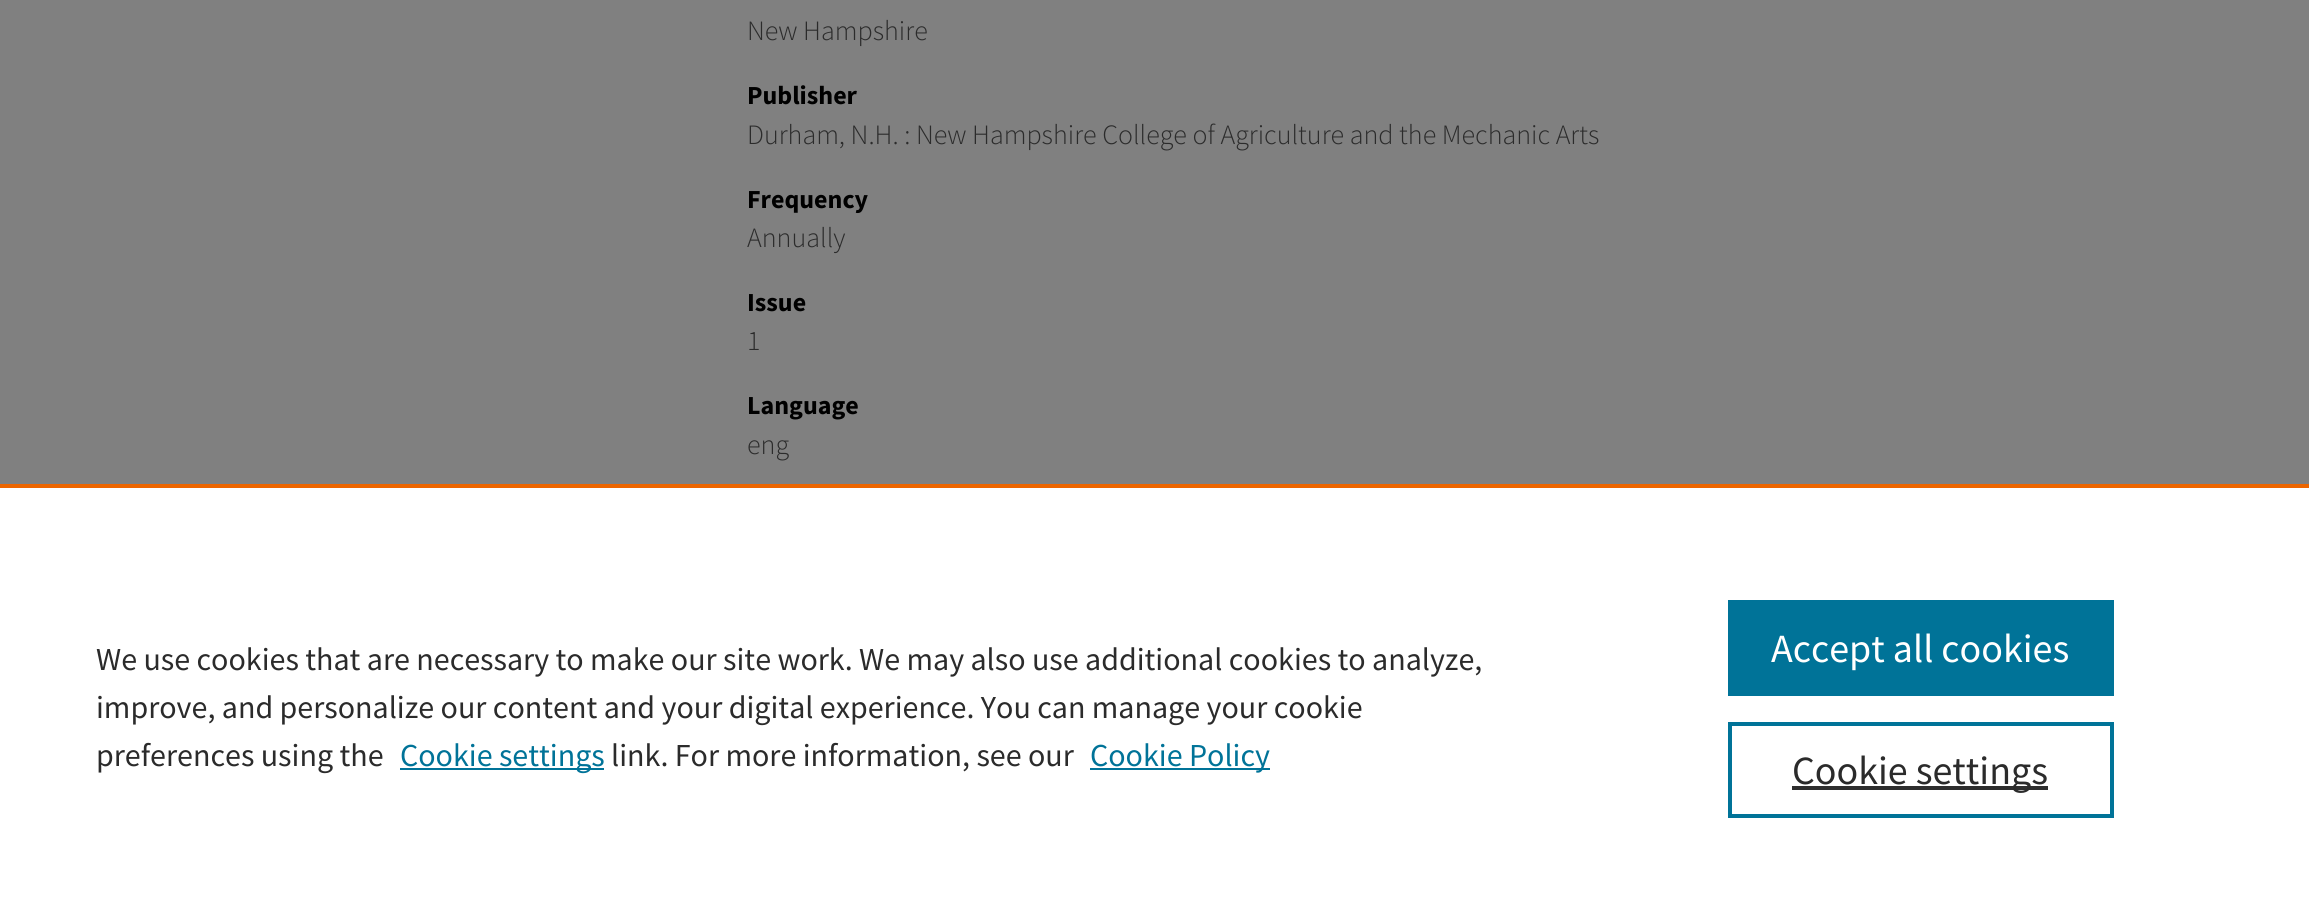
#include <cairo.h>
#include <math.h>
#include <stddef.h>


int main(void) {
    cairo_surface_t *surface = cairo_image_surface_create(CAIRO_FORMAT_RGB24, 2309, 923);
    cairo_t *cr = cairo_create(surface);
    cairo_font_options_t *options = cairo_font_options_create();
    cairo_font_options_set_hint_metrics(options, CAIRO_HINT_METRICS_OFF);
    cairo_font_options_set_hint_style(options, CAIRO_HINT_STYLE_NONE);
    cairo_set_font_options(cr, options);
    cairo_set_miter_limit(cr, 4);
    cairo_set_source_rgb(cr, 0.502, 0.502, 0.502);
    cairo_paint(cr);
    cairo_select_font_face(cr, "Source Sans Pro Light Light", CAIRO_FONT_SLANT_NORMAL, CAIRO_FONT_WEIGHT_NORMAL);
    cairo_set_font_size(cr, 28);
    cairo_set_source_rgb(cr, 0.169, 0.169, 0.169);
    cairo_move_to(cr, 747, 40);
    cairo_show_text(cr, "New Hampshire");
    cairo_select_font_face(cr, "Source Sans Pro", CAIRO_FONT_SLANT_NORMAL, CAIRO_FONT_WEIGHT_BOLD);
    cairo_set_font_size(cr, 26);
    cairo_set_source_rgb(cr, 0, 0, 0);
    cairo_move_to(cr, 747, 104);
    cairo_show_text(cr, "Publisher");
    cairo_select_font_face(cr, "Source Sans Pro Light Light", CAIRO_FONT_SLANT_NORMAL, CAIRO_FONT_WEIGHT_NORMAL);
    cairo_set_font_size(cr, 28);
    cairo_set_source_rgb(cr, 0.169, 0.169, 0.169);
    cairo_move_to(cr, 747, 144);
    cairo_show_text(cr, "Durham, N.H. : New Hampshire College of Agriculture and the Mechanic Arts");
    cairo_select_font_face(cr, "Source Sans Pro", CAIRO_FONT_SLANT_NORMAL, CAIRO_FONT_WEIGHT_BOLD);
    cairo_set_font_size(cr, 26);
    cairo_set_source_rgb(cr, 0, 0, 0);
    cairo_move_to(cr, 747, 208);
    cairo_show_text(cr, "Frequency");
    cairo_select_font_face(cr, "Source Sans Pro Light Light", CAIRO_FONT_SLANT_NORMAL, CAIRO_FONT_WEIGHT_NORMAL);
    cairo_set_font_size(cr, 28);
    cairo_set_source_rgb(cr, 0.169, 0.169, 0.169);
    cairo_move_to(cr, 747, 247);
    cairo_show_text(cr, "Annually");
    cairo_select_font_face(cr, "Source Sans Pro", CAIRO_FONT_SLANT_NORMAL, CAIRO_FONT_WEIGHT_BOLD);
    cairo_set_font_size(cr, 26);
    cairo_set_source_rgb(cr, 0, 0, 0);
    cairo_move_to(cr, 747, 311);
    cairo_show_text(cr, "Issue");
    cairo_select_font_face(cr, "Source Sans Pro Light Light", CAIRO_FONT_SLANT_NORMAL, CAIRO_FONT_WEIGHT_NORMAL);
    cairo_set_font_size(cr, 28);
    cairo_set_source_rgb(cr, 0.169, 0.169, 0.169);
    cairo_move_to(cr, 747, 350);
    cairo_show_text(cr, "1");
    cairo_select_font_face(cr, "Source Sans Pro", CAIRO_FONT_SLANT_NORMAL, CAIRO_FONT_WEIGHT_BOLD);
    cairo_set_font_size(cr, 26);
    cairo_set_source_rgb(cr, 0, 0, 0);
    cairo_move_to(cr, 747, 414);
    cairo_show_text(cr, "Language");
    cairo_select_font_face(cr, "Source Sans Pro Light Light", CAIRO_FONT_SLANT_NORMAL, CAIRO_FONT_WEIGHT_NORMAL);
    cairo_set_font_size(cr, 28);
    cairo_set_source_rgb(cr, 0.169, 0.169, 0.169);
    cairo_move_to(cr, 747, 454);
    cairo_show_text(cr, "eng");
    cairo_set_source_rgb(cr, 1, 1, 1);
    cairo_rectangle(cr, 0, 488, 2309, 435);
    cairo_fill(cr);
    cairo_set_source_rgb(cr, 0.922, 0.396, 0);
    cairo_rectangle(cr, 0, 484, 2309, 4);
    cairo_fill(cr);
    cairo_select_font_face(cr, "Source Sans Pro", CAIRO_FONT_SLANT_NORMAL, CAIRO_FONT_WEIGHT_NORMAL);
    cairo_set_font_size(cr, 32);
    cairo_set_source_rgb(cr, 0.169, 0.169, 0.169);
    cairo_move_to(cr, 96, 670);
    cairo_show_text(cr, "We use cookies that are necessary to make our site work. We may also use additional cookies to analyze,");
    cairo_move_to(cr, 96, 718);
    cairo_show_text(cr, "improve, and personalize our content and your digital experience. You can manage your cookie");
    cairo_move_to(cr, 96, 766);
    cairo_show_text(cr, "preferences using the");
    cairo_set_source_rgb(cr, 0, 0.451, 0.596);
    cairo_rectangle(cr, 400, 768, 204, 2);
    cairo_fill(cr);
    cairo_move_to(cr, 400, 766);
    cairo_show_text(cr, "Cookie settings");
    cairo_set_source_rgb(cr, 0.169, 0.169, 0.169);
    cairo_move_to(cr, 611, 766);
    cairo_show_text(cr, "link. For more information, see our");
    cairo_set_source_rgb(cr, 0, 0.451, 0.596);
    cairo_rectangle(cr, 1090, 768, 180, 2);
    cairo_fill(cr);
    cairo_move_to(cr, 1090, 766);
    cairo_show_text(cr, "Cookie Policy");
    cairo_rectangle(cr, 1728, 600, 386, 96);
    cairo_fill(cr);
    cairo_set_font_size(cr, 40);
    cairo_set_source_rgb(cr, 1, 1, 1);
    cairo_move_to(cr, 1771, 662);
    cairo_show_text(cr, "Accept all cookies");
    cairo_rectangle(cr, 1730, 724, 382, 92);
    cairo_set_source_rgb(cr, 0, 0.451, 0.596);
    cairo_set_line_width(cr, 4);
    cairo_stroke(cr);
    cairo_set_source_rgb(cr, 0.18, 0.18, 0.18);
    cairo_rectangle(cr, 1792, 786, 256, 4);
    cairo_fill(cr);
    cairo_set_source_rgb(cr, 0.169, 0.169, 0.169);
    cairo_move_to(cr, 1792, 784);
    cairo_show_text(cr, "Cookie settings");
    cairo_surface_write_to_png(surface, "page.png");
    cairo_font_options_destroy(options);
    cairo_destroy(cr);
    cairo_surface_destroy(surface);
    return 0;
}
